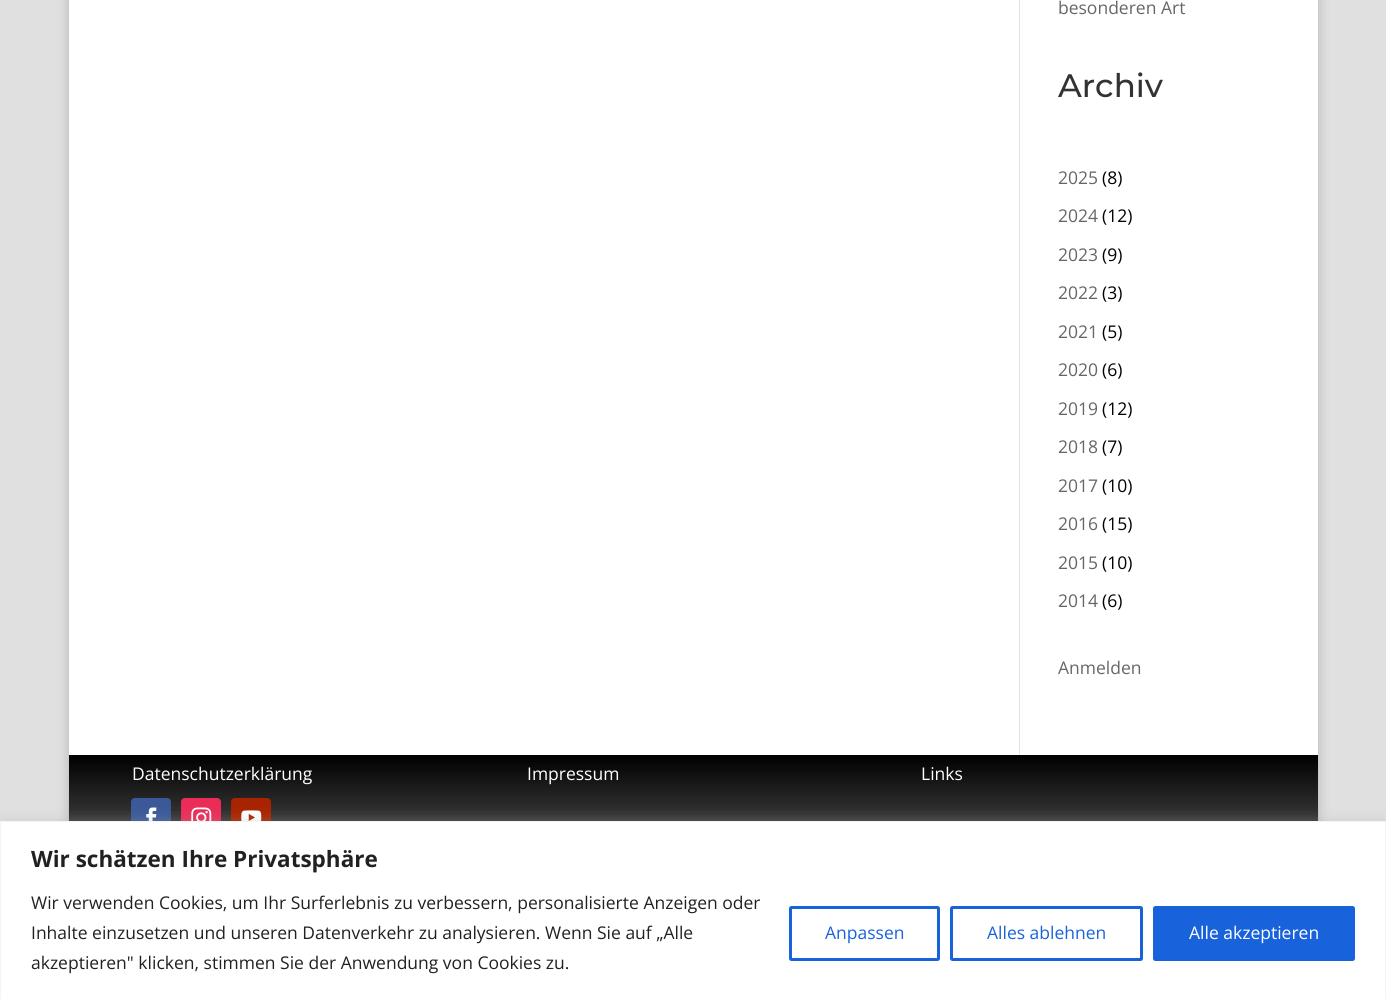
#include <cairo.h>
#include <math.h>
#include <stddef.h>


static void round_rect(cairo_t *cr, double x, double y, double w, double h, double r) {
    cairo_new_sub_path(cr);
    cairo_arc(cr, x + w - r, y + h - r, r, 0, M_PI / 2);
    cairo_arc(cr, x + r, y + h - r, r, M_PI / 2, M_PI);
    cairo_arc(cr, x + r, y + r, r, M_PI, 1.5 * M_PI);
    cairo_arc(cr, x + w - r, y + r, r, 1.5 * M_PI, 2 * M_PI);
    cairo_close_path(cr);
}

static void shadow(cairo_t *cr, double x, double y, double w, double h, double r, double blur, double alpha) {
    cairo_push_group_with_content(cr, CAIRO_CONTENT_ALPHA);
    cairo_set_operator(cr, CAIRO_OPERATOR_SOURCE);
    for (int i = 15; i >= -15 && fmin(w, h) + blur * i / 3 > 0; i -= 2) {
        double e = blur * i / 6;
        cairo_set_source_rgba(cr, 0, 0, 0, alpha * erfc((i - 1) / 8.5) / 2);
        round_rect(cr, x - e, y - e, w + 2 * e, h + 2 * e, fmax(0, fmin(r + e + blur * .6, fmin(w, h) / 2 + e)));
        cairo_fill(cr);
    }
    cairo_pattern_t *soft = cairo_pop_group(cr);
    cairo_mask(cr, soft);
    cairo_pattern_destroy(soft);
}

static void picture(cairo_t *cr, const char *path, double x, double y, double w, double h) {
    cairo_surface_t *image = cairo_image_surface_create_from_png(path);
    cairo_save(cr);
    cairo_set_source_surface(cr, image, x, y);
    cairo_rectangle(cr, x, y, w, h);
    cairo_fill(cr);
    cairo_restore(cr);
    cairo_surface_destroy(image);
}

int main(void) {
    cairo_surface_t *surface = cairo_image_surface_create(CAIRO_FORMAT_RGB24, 1386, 999);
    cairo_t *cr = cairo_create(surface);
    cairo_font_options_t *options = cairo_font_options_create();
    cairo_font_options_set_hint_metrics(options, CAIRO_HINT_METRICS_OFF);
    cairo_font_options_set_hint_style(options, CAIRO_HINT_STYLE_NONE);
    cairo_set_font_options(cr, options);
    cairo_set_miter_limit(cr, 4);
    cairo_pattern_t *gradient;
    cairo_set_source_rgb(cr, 0.878, 0.878, 0.878);
    cairo_paint(cr);
    cairo_set_source_rgb(cr, 0, 0, 0);
    shadow(cr, 69, -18, 1249, 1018, 0, 6, 0.2);
    cairo_set_source_rgb(cr, 1, 1, 1);
    cairo_rectangle(cr, 69, 0, 1249, 755);
    cairo_fill(cr);
    cairo_set_source_rgb(cr, 0.886, 0.886, 0.886);
    cairo_rectangle(cr, 1019, 0, 1, 755);
    cairo_fill(cr);
    cairo_select_font_face(cr, "Open Sans", CAIRO_FONT_SLANT_NORMAL, CAIRO_FONT_WEIGHT_NORMAL);
    cairo_set_font_size(cr, 17.5);
    cairo_set_source_rgb(cr, 0.4, 0.4, 0.4);
    cairo_move_to(cr, 1058, 14);
    cairo_show_text(cr, "besonderen Art");
    cairo_select_font_face(cr, "Montserrat Medium", CAIRO_FONT_SLANT_NORMAL, CAIRO_FONT_WEIGHT_NORMAL);
    cairo_set_font_size(cr, 32.5);
    cairo_set_source_rgb(cr, 0.2, 0.2, 0.2);
    cairo_move_to(cr, 1058, 97);
    cairo_show_text(cr, "Archiv");
    cairo_select_font_face(cr, "Open Sans", CAIRO_FONT_SLANT_NORMAL, CAIRO_FONT_WEIGHT_NORMAL);
    cairo_set_font_size(cr, 17.5);
    cairo_set_source_rgb(cr, 0.4, 0.4, 0.4);
    cairo_move_to(cr, 1058, 184);
    cairo_show_text(cr, "2025");
    cairo_set_source_rgb(cr, 0, 0, 0);
    cairo_move_to(cr, 1102, 184);
    cairo_show_text(cr, "(8)");
    cairo_set_source_rgb(cr, 0.4, 0.4, 0.4);
    cairo_move_to(cr, 1058, 222);
    cairo_show_text(cr, "2024");
    cairo_set_source_rgb(cr, 0, 0, 0);
    cairo_move_to(cr, 1102, 222);
    cairo_show_text(cr, "(12)");
    cairo_set_source_rgb(cr, 0.4, 0.4, 0.4);
    cairo_move_to(cr, 1058, 261);
    cairo_show_text(cr, "2023");
    cairo_set_source_rgb(cr, 0, 0, 0);
    cairo_move_to(cr, 1102, 261);
    cairo_show_text(cr, "(9)");
    cairo_set_source_rgb(cr, 0.4, 0.4, 0.4);
    cairo_move_to(cr, 1058, 299);
    cairo_show_text(cr, "2022");
    cairo_set_source_rgb(cr, 0, 0, 0);
    cairo_move_to(cr, 1102, 299);
    cairo_show_text(cr, "(3)");
    cairo_set_source_rgb(cr, 0.4, 0.4, 0.4);
    cairo_move_to(cr, 1058, 338);
    cairo_show_text(cr, "2021");
    cairo_set_source_rgb(cr, 0, 0, 0);
    cairo_move_to(cr, 1102, 338);
    cairo_show_text(cr, "(5)");
    cairo_set_source_rgb(cr, 0.4, 0.4, 0.4);
    cairo_move_to(cr, 1058, 376);
    cairo_show_text(cr, "2020");
    cairo_set_source_rgb(cr, 0, 0, 0);
    cairo_move_to(cr, 1102, 376);
    cairo_show_text(cr, "(6)");
    cairo_set_source_rgb(cr, 0.4, 0.4, 0.4);
    cairo_move_to(cr, 1058, 415);
    cairo_show_text(cr, "2019");
    cairo_set_source_rgb(cr, 0, 0, 0);
    cairo_move_to(cr, 1102, 415);
    cairo_show_text(cr, "(12)");
    cairo_set_source_rgb(cr, 0.4, 0.4, 0.4);
    cairo_move_to(cr, 1058, 453);
    cairo_show_text(cr, "2018");
    cairo_set_source_rgb(cr, 0, 0, 0);
    cairo_move_to(cr, 1102, 453);
    cairo_show_text(cr, "(7)");
    cairo_set_source_rgb(cr, 0.4, 0.4, 0.4);
    cairo_move_to(cr, 1058, 492);
    cairo_show_text(cr, "2017");
    cairo_set_source_rgb(cr, 0, 0, 0);
    cairo_move_to(cr, 1102, 492);
    cairo_show_text(cr, "(10)");
    cairo_set_source_rgb(cr, 0.4, 0.4, 0.4);
    cairo_move_to(cr, 1058, 530);
    cairo_show_text(cr, "2016");
    cairo_set_source_rgb(cr, 0, 0, 0);
    cairo_move_to(cr, 1102, 530);
    cairo_show_text(cr, "(15)");
    cairo_set_source_rgb(cr, 0.4, 0.4, 0.4);
    cairo_move_to(cr, 1058, 569);
    cairo_show_text(cr, "2015");
    cairo_set_source_rgb(cr, 0, 0, 0);
    cairo_move_to(cr, 1102, 569);
    cairo_show_text(cr, "(10)");
    cairo_set_source_rgb(cr, 0.4, 0.4, 0.4);
    cairo_move_to(cr, 1058, 607);
    cairo_show_text(cr, "2014");
    cairo_set_source_rgb(cr, 0, 0, 0);
    cairo_move_to(cr, 1102, 607);
    cairo_show_text(cr, "(6)");
    cairo_set_source_rgb(cr, 0.4, 0.4, 0.4);
    cairo_move_to(cr, 1058, 674);
    cairo_show_text(cr, "Anmelden");
    gradient = cairo_pattern_create_linear(693, 755, 693, 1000);
    cairo_pattern_add_color_stop_rgba(gradient, 0, 0, 0, 0, 1);
    cairo_pattern_add_color_stop_rgba(gradient, 1, 0.812, 0.812, 0.812, 1);
    cairo_set_source(cr, gradient);
    cairo_pattern_destroy(gradient);
    cairo_rectangle(cr, 69, 755, 1249, 66);
    cairo_fill(cr);
    cairo_set_source_rgb(cr, 1, 1, 1);
    cairo_move_to(cr, 132, 780);
    cairo_show_text(cr, "Datenschutzerklärung");
    cairo_move_to(cr, 527, 780);
    cairo_show_text(cr, "Impressum");
    cairo_move_to(cr, 921, 780);
    cairo_show_text(cr, "Links");
    cairo_set_source_rgb(cr, 0.231, 0.349, 0.596);
    round_rect(cr, 131, 798, 40, 40, 4);
    cairo_fill(cr);
    picture(cr, "img1.png", 146, 807, 11, 14);
    cairo_set_source_rgb(cr, 0.918, 0.173, 0.349);
    round_rect(cr, 181, 798, 40, 40, 4);
    cairo_fill(cr);
    picture(cr, "img2.png", 191, 807, 21, 14);
    cairo_set_source_rgb(cr, 0.659, 0.141, 0);
    round_rect(cr, 231, 798, 40, 40, 4);
    cairo_fill(cr);
    picture(cr, "img3.png", 241, 810, 21, 11);
    cairo_set_source_rgb(cr, 0.675, 0.671, 0.671);
    shadow(cr, 0, 820, 1386, 179, 0, 6, 0.3);
    cairo_set_source_rgb(cr, 1, 1, 1);
    cairo_rectangle(cr, 0.5, 821.5, 1385, 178);
    cairo_fill_preserve(cr);
    cairo_set_source_rgb(cr, 0.957, 0.957, 0.957);
    cairo_set_line_width(cr, 1);
    cairo_stroke(cr);
    cairo_select_font_face(cr, "Open Sans", CAIRO_FONT_SLANT_NORMAL, CAIRO_FONT_WEIGHT_BOLD);
    cairo_set_font_size(cr, 22.5);
    cairo_set_source_rgb(cr, 0.129, 0.129, 0.129);
    cairo_move_to(cr, 31, 867);
    cairo_show_text(cr, "Wir schätzen Ihre Privatsphäre");
    cairo_select_font_face(cr, "Open Sans", CAIRO_FONT_SLANT_NORMAL, CAIRO_FONT_WEIGHT_NORMAL);
    cairo_set_font_size(cr, 17.5);
    cairo_move_to(cr, 31, 909);
    cairo_show_text(cr, "Wir verwenden Cookies, um Ihr Surferlebnis zu verbessern, personalisierte Anzeigen oder");
    cairo_move_to(cr, 31, 939);
    cairo_show_text(cr, "Inhalte einzusetzen und unseren Datenverkehr zu analysieren. Wenn Sie auf „Alle");
    cairo_move_to(cr, 31, 969);
    cairo_show_text(cr, "akzeptieren\" klicken, stimmen Sie der Anwendung von Cookies zu.");
    round_rect(cr, 790.5, 907.5, 148, 52, 1);
    cairo_set_source_rgb(cr, 0.094, 0.388, 0.863);
    cairo_set_line_width(cr, 3);
    cairo_stroke(cr);
    cairo_move_to(cr, 825, 939);
    cairo_show_text(cr, "Anpassen");
    round_rect(cr, 951.5, 907.5, 190, 52, 1);
    cairo_stroke(cr);
    cairo_move_to(cr, 987, 939);
    cairo_show_text(cr, "Alles ablehnen");
    round_rect(cr, 1154.5, 907.5, 199, 52, 1);
    cairo_fill_preserve(cr);
    cairo_stroke(cr);
    cairo_set_source_rgb(cr, 1, 1, 1);
    cairo_move_to(cr, 1189, 939);
    cairo_show_text(cr, "Alle akzeptieren");
    cairo_surface_write_to_png(surface, "page.png");
    cairo_font_options_destroy(options);
    cairo_destroy(cr);
    cairo_surface_destroy(surface);
    return 0;
}
